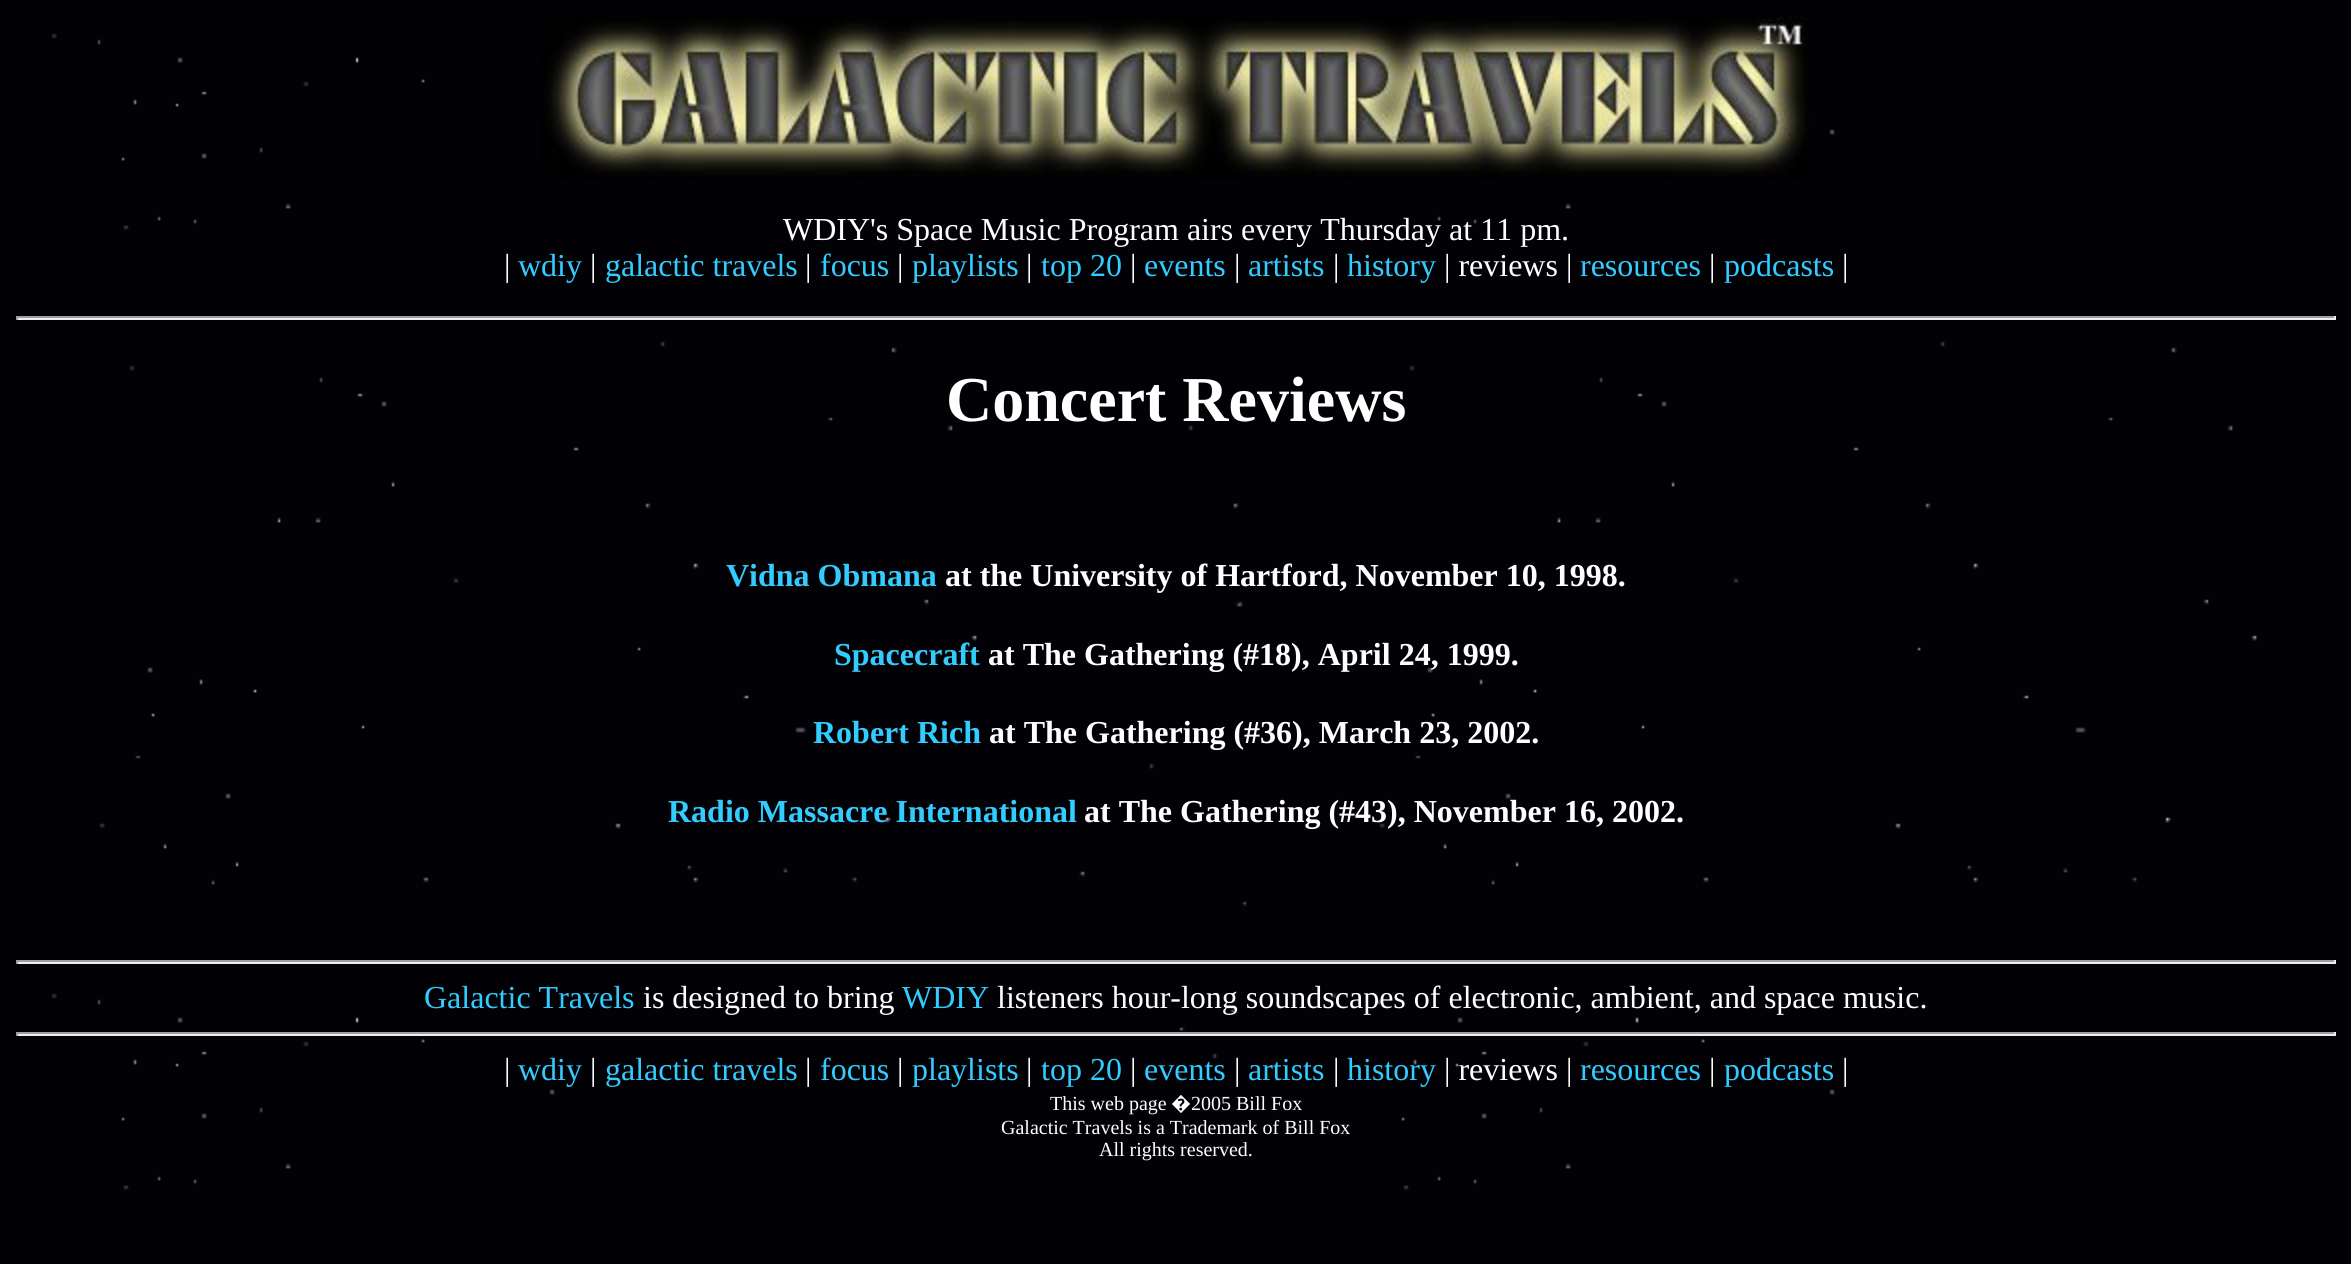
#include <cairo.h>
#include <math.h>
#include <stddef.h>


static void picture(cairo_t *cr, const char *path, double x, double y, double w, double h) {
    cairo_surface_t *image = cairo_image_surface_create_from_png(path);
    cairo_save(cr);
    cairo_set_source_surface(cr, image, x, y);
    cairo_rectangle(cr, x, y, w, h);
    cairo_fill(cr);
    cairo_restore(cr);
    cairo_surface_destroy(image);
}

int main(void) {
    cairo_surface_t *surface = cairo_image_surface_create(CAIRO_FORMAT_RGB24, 2351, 1264);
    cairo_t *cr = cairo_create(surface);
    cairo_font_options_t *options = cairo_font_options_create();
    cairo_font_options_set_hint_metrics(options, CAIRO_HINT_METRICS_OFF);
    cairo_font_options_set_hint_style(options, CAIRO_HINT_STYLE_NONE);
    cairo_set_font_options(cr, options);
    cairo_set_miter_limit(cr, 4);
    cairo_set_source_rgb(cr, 1, 1, 1);
    cairo_paint(cr);
    picture(cr, "img1.png", 0, 0, 2351, 1264);
    picture(cr, "img2.png", 542, 16, 1270, 164);
    cairo_select_font_face(cr, "Liberation Serif", CAIRO_FONT_SLANT_NORMAL, CAIRO_FONT_WEIGHT_NORMAL);
    cairo_set_font_size(cr, 32);
    cairo_set_source_rgb(cr, 1, 1, 1);
    cairo_move_to(cr, 783, 240);
    cairo_show_text(cr, "WDIY's Space Music Program airs every Thursday at 11 pm.");
    cairo_move_to(cr, 504, 276);
    cairo_show_text(cr, "|");
    cairo_set_source_rgb(cr, 0.2, 0.8, 1);
    cairo_move_to(cr, 518, 276);
    cairo_show_text(cr, "wdiy");
    cairo_set_source_rgb(cr, 1, 1, 1);
    cairo_move_to(cr, 590, 276);
    cairo_show_text(cr, "|");
    cairo_set_source_rgb(cr, 0.2, 0.8, 1);
    cairo_move_to(cr, 605, 276);
    cairo_show_text(cr, "galactic travels");
    cairo_set_source_rgb(cr, 1, 1, 1);
    cairo_move_to(cr, 805, 276);
    cairo_show_text(cr, "|");
    cairo_set_source_rgb(cr, 0.2, 0.8, 1);
    cairo_move_to(cr, 820, 276);
    cairo_show_text(cr, "focus");
    cairo_set_source_rgb(cr, 1, 1, 1);
    cairo_move_to(cr, 897, 276);
    cairo_show_text(cr, "|");
    cairo_set_source_rgb(cr, 0.2, 0.8, 1);
    cairo_move_to(cr, 912, 276);
    cairo_show_text(cr, "playlists");
    cairo_set_source_rgb(cr, 1, 1, 1);
    cairo_move_to(cr, 1026, 276);
    cairo_show_text(cr, "|");
    cairo_set_source_rgb(cr, 0.2, 0.8, 1);
    cairo_move_to(cr, 1041, 276);
    cairo_show_text(cr, "top 20");
    cairo_set_source_rgb(cr, 1, 1, 1);
    cairo_move_to(cr, 1130, 276);
    cairo_show_text(cr, "|");
    cairo_set_source_rgb(cr, 0.2, 0.8, 1);
    cairo_move_to(cr, 1144, 276);
    cairo_show_text(cr, "events");
    cairo_set_source_rgb(cr, 1, 1, 1);
    cairo_move_to(cr, 1234, 276);
    cairo_show_text(cr, "|");
    cairo_set_source_rgb(cr, 0.2, 0.8, 1);
    cairo_move_to(cr, 1248, 276);
    cairo_show_text(cr, "artists");
    cairo_set_source_rgb(cr, 1, 1, 1);
    cairo_move_to(cr, 1333, 276);
    cairo_show_text(cr, "|");
    cairo_set_source_rgb(cr, 0.2, 0.8, 1);
    cairo_move_to(cr, 1347, 276);
    cairo_show_text(cr, "history");
    cairo_set_source_rgb(cr, 1, 1, 1);
    cairo_move_to(cr, 1444, 276);
    cairo_show_text(cr, "| reviews |");
    cairo_set_source_rgb(cr, 0.2, 0.8, 1);
    cairo_move_to(cr, 1580, 276);
    cairo_show_text(cr, "resources");
    cairo_set_source_rgb(cr, 1, 1, 1);
    cairo_move_to(cr, 1709, 276);
    cairo_show_text(cr, "|");
    cairo_set_source_rgb(cr, 0.2, 0.8, 1);
    cairo_move_to(cr, 1724, 276);
    cairo_show_text(cr, "podcasts");
    cairo_set_source_rgb(cr, 1, 1, 1);
    cairo_move_to(cr, 1842, 276);
    cairo_show_text(cr, "|");
    cairo_set_source_rgb(cr, 0.624, 0.624, 0.624);
    cairo_rectangle(cr, 16, 316, 2320, 2);
    cairo_fill(cr);
    cairo_set_source_rgb(cr, 0.933, 0.933, 0.933);
    cairo_rectangle(cr, 2334, 316, 2, 4);
    cairo_fill(cr);
    cairo_rectangle(cr, 16, 318, 2320, 2);
    cairo_fill(cr);
    cairo_set_source_rgb(cr, 0.624, 0.624, 0.624);
    cairo_rectangle(cr, 16, 316, 2, 4);
    cairo_fill(cr);
    cairo_select_font_face(cr, "Liberation Serif", CAIRO_FONT_SLANT_NORMAL, CAIRO_FONT_WEIGHT_BOLD);
    cairo_set_font_size(cr, 64);
    cairo_set_source_rgb(cr, 1, 1, 1);
    cairo_move_to(cr, 946, 421);
    cairo_show_text(cr, "Concert Reviews");
    cairo_set_font_size(cr, 32);
    cairo_set_source_rgb(cr, 0.2, 0.8, 1);
    cairo_move_to(cr, 726, 586);
    cairo_show_text(cr, "Vidna Obmana");
    cairo_set_source_rgb(cr, 1, 1, 1);
    cairo_move_to(cr, 945, 586);
    cairo_show_text(cr, "at the University of Hartford, November 10, 1998.");
    cairo_set_source_rgb(cr, 0.2, 0.8, 1);
    cairo_move_to(cr, 834, 665);
    cairo_show_text(cr, "Spacecraft");
    cairo_set_source_rgb(cr, 1, 1, 1);
    cairo_move_to(cr, 988, 665);
    cairo_show_text(cr, "at The Gathering (#18), April 24, 1999.");
    cairo_set_source_rgb(cr, 0.2, 0.8, 1);
    cairo_move_to(cr, 813, 743);
    cairo_show_text(cr, "Robert Rich");
    cairo_set_source_rgb(cr, 1, 1, 1);
    cairo_move_to(cr, 989, 743);
    cairo_show_text(cr, "at The Gathering (#36), March 23, 2002.");
    cairo_set_source_rgb(cr, 0.2, 0.8, 1);
    cairo_move_to(cr, 668, 822);
    cairo_show_text(cr, "Radio Massacre International");
    cairo_set_source_rgb(cr, 1, 1, 1);
    cairo_move_to(cr, 1084, 822);
    cairo_show_text(cr, "at The Gathering (#43), November 16, 2002.");
    cairo_set_source_rgb(cr, 0.624, 0.624, 0.624);
    cairo_rectangle(cr, 16, 960, 2320, 2);
    cairo_fill(cr);
    cairo_set_source_rgb(cr, 0.933, 0.933, 0.933);
    cairo_rectangle(cr, 2334, 960, 2, 4);
    cairo_fill(cr);
    cairo_rectangle(cr, 16, 962, 2320, 2);
    cairo_fill(cr);
    cairo_set_source_rgb(cr, 0.624, 0.624, 0.624);
    cairo_rectangle(cr, 16, 960, 2, 4);
    cairo_fill(cr);
    cairo_select_font_face(cr, "Liberation Serif", CAIRO_FONT_SLANT_NORMAL, CAIRO_FONT_WEIGHT_NORMAL);
    cairo_set_source_rgb(cr, 0.2, 0.8, 1);
    cairo_move_to(cr, 424, 1008);
    cairo_show_text(cr, "Galactic Travels");
    cairo_set_source_rgb(cr, 1, 1, 1);
    cairo_move_to(cr, 643, 1008);
    cairo_show_text(cr, "is designed to bring");
    cairo_set_source_rgb(cr, 0.2, 0.8, 1);
    cairo_move_to(cr, 902, 1008);
    cairo_show_text(cr, "WDIY");
    cairo_set_source_rgb(cr, 1, 1, 1);
    cairo_move_to(cr, 997, 1008);
    cairo_show_text(cr, "listeners hour-long soundscapes of electronic, ambient, and space music.");
    cairo_set_source_rgb(cr, 0.624, 0.624, 0.624);
    cairo_rectangle(cr, 16, 1032, 2320, 2);
    cairo_fill(cr);
    cairo_set_source_rgb(cr, 0.933, 0.933, 0.933);
    cairo_rectangle(cr, 2334, 1032, 2, 4);
    cairo_fill(cr);
    cairo_rectangle(cr, 16, 1034, 2320, 2);
    cairo_fill(cr);
    cairo_set_source_rgb(cr, 0.624, 0.624, 0.624);
    cairo_rectangle(cr, 16, 1032, 2, 4);
    cairo_fill(cr);
    cairo_set_source_rgb(cr, 1, 1, 1);
    cairo_move_to(cr, 504, 1080);
    cairo_show_text(cr, "|");
    cairo_set_source_rgb(cr, 0.2, 0.8, 1);
    cairo_move_to(cr, 518, 1080);
    cairo_show_text(cr, "wdiy");
    cairo_set_source_rgb(cr, 1, 1, 1);
    cairo_move_to(cr, 590, 1080);
    cairo_show_text(cr, "|");
    cairo_set_source_rgb(cr, 0.2, 0.8, 1);
    cairo_move_to(cr, 605, 1080);
    cairo_show_text(cr, "galactic travels");
    cairo_set_source_rgb(cr, 1, 1, 1);
    cairo_move_to(cr, 805, 1080);
    cairo_show_text(cr, "|");
    cairo_set_source_rgb(cr, 0.2, 0.8, 1);
    cairo_move_to(cr, 820, 1080);
    cairo_show_text(cr, "focus");
    cairo_set_source_rgb(cr, 1, 1, 1);
    cairo_move_to(cr, 897, 1080);
    cairo_show_text(cr, "|");
    cairo_set_source_rgb(cr, 0.2, 0.8, 1);
    cairo_move_to(cr, 912, 1080);
    cairo_show_text(cr, "playlists");
    cairo_set_source_rgb(cr, 1, 1, 1);
    cairo_move_to(cr, 1026, 1080);
    cairo_show_text(cr, "|");
    cairo_set_source_rgb(cr, 0.2, 0.8, 1);
    cairo_move_to(cr, 1041, 1080);
    cairo_show_text(cr, "top 20");
    cairo_set_source_rgb(cr, 1, 1, 1);
    cairo_move_to(cr, 1130, 1080);
    cairo_show_text(cr, "|");
    cairo_set_source_rgb(cr, 0.2, 0.8, 1);
    cairo_move_to(cr, 1144, 1080);
    cairo_show_text(cr, "events");
    cairo_set_source_rgb(cr, 1, 1, 1);
    cairo_move_to(cr, 1234, 1080);
    cairo_show_text(cr, "|");
    cairo_set_source_rgb(cr, 0.2, 0.8, 1);
    cairo_move_to(cr, 1248, 1080);
    cairo_show_text(cr, "artists");
    cairo_set_source_rgb(cr, 1, 1, 1);
    cairo_move_to(cr, 1333, 1080);
    cairo_show_text(cr, "|");
    cairo_set_source_rgb(cr, 0.2, 0.8, 1);
    cairo_move_to(cr, 1347, 1080);
    cairo_show_text(cr, "history");
    cairo_set_source_rgb(cr, 1, 1, 1);
    cairo_move_to(cr, 1444, 1080);
    cairo_show_text(cr, "| reviews |");
    cairo_set_source_rgb(cr, 0.2, 0.8, 1);
    cairo_move_to(cr, 1580, 1080);
    cairo_show_text(cr, "resources");
    cairo_set_source_rgb(cr, 1, 1, 1);
    cairo_move_to(cr, 1709, 1080);
    cairo_show_text(cr, "|");
    cairo_set_source_rgb(cr, 0.2, 0.8, 1);
    cairo_move_to(cr, 1724, 1080);
    cairo_show_text(cr, "podcasts");
    cairo_set_source_rgb(cr, 1, 1, 1);
    cairo_move_to(cr, 1842, 1080);
    cairo_show_text(cr, "|");
    cairo_set_font_size(cr, 20);
    cairo_move_to(cr, 1050, 1110);
    cairo_show_text(cr, "This web page");
    cairo_select_font_face(cr, "Noto Sans", CAIRO_FONT_SLANT_NORMAL, CAIRO_FONT_WEIGHT_NORMAL);
    cairo_move_to(cr, 1171, 1110);
    cairo_show_text(cr, "�");
    cairo_select_font_face(cr, "Liberation Serif", CAIRO_FONT_SLANT_NORMAL, CAIRO_FONT_WEIGHT_NORMAL);
    cairo_move_to(cr, 1191, 1110);
    cairo_show_text(cr, "2005 Bill Fox");
    cairo_move_to(cr, 1001, 1134);
    cairo_show_text(cr, "Galactic Travels is a Trademark of Bill Fox");
    cairo_move_to(cr, 1099, 1156);
    cairo_show_text(cr, "All rights reserved.");
    cairo_surface_write_to_png(surface, "page.png");
    cairo_font_options_destroy(options);
    cairo_destroy(cr);
    cairo_surface_destroy(surface);
    return 0;
}
